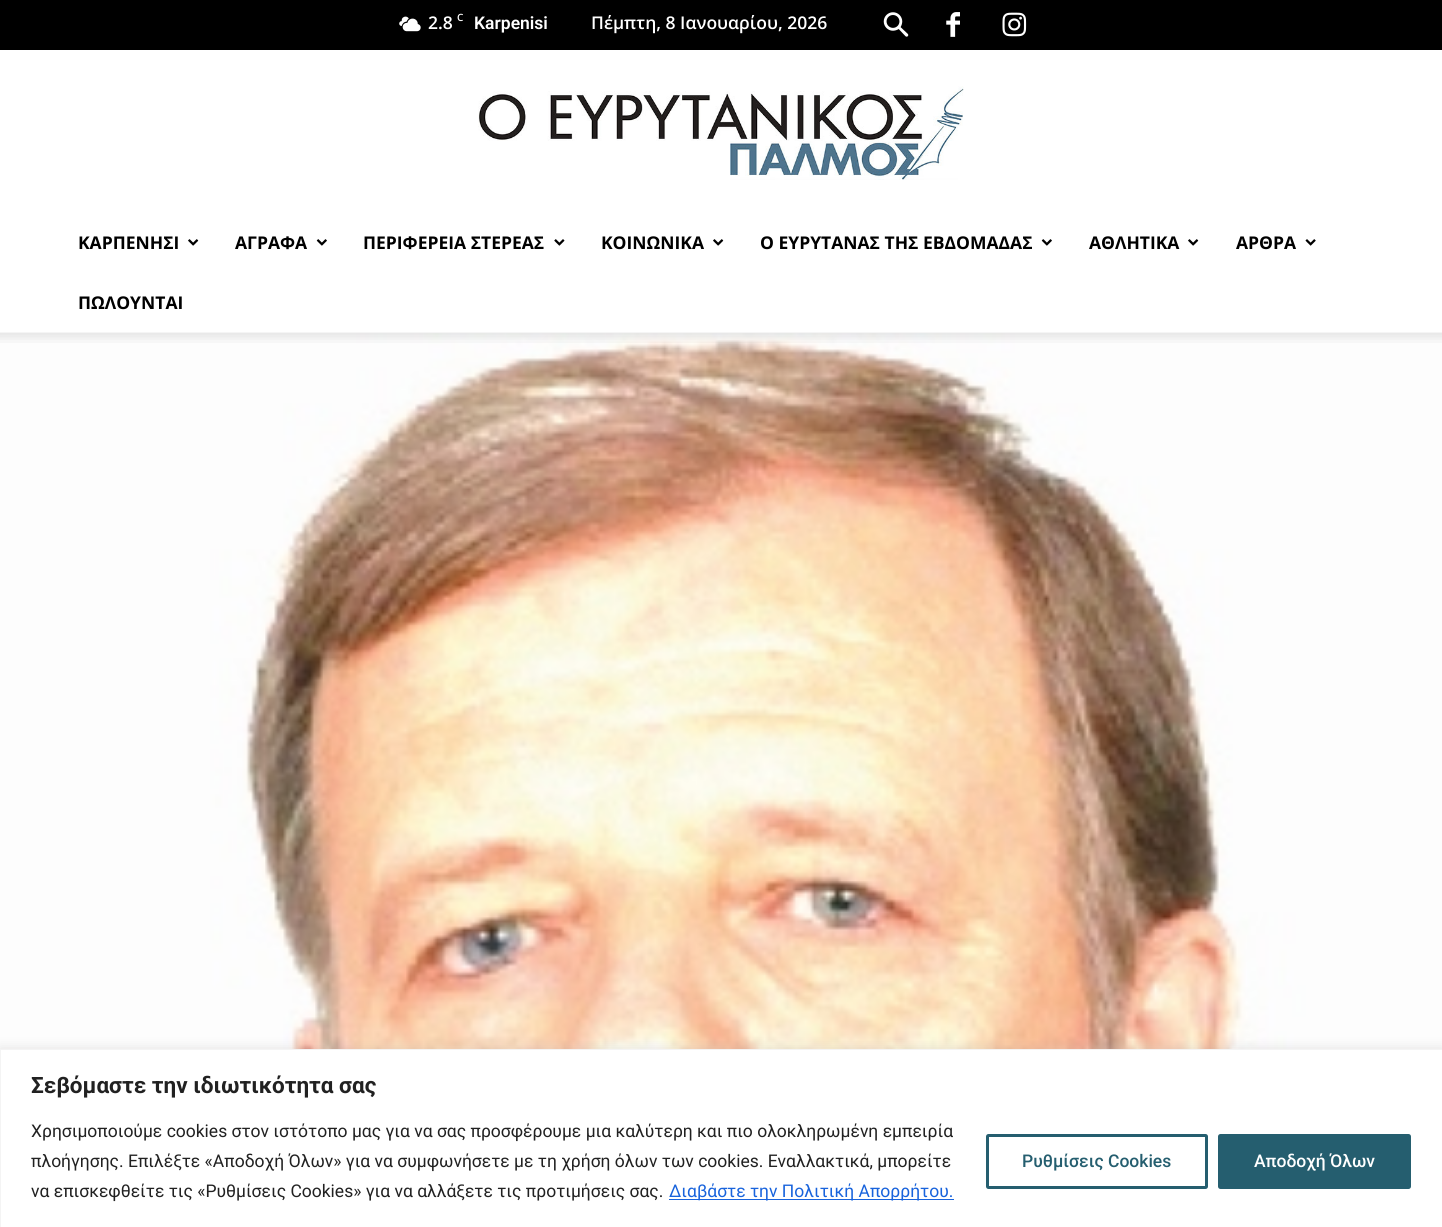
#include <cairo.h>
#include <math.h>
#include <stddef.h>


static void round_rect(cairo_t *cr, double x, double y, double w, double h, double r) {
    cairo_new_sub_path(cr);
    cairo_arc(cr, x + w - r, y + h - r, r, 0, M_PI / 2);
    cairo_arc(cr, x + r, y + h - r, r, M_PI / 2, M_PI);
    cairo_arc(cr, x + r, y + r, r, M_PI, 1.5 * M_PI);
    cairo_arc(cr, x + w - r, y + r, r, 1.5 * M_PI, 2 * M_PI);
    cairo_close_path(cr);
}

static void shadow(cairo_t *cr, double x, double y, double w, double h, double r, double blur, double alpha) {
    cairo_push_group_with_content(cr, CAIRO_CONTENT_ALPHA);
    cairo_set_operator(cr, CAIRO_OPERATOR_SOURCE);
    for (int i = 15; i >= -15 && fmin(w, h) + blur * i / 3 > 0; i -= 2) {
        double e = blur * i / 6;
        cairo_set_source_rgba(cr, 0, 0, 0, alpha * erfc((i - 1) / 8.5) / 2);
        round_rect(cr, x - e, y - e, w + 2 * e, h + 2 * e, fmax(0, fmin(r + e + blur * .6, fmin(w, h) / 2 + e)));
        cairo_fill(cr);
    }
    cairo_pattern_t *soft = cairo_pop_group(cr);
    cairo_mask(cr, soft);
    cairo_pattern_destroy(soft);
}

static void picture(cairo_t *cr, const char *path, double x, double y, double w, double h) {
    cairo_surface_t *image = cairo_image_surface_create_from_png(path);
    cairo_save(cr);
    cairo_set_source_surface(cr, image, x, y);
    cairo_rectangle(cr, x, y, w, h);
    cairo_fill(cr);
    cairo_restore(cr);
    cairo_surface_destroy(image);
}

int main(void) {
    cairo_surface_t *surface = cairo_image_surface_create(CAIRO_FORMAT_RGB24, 1442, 1227);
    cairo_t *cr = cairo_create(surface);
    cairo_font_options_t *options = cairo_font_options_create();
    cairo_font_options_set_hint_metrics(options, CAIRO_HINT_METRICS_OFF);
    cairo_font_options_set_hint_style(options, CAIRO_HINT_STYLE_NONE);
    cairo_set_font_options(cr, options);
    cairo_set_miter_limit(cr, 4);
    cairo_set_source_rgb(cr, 1, 1, 1);
    cairo_paint(cr);
    cairo_set_source_rgb(cr, 0, 0, 0);
    cairo_rectangle(cr, 0, 0, 1442, 50);
    cairo_fill(cr);
    picture(cr, "img1.png", 399, 16, 22, 16);
    cairo_select_font_face(cr, "Open Sans SemiBold", CAIRO_FONT_SLANT_NORMAL, CAIRO_FONT_WEIGHT_NORMAL);
    cairo_set_font_size(cr, 17.5);
    cairo_set_source_rgb(cr, 1, 1, 1);
    cairo_move_to(cr, 428, 29);
    cairo_show_text(cr, "2.8");
    cairo_set_font_size(cr, 10);
    cairo_move_to(cr, 457, 21);
    cairo_show_text(cr, "C");
    cairo_select_font_face(cr, "Roboto SemiBold", CAIRO_FONT_SLANT_NORMAL, CAIRO_FONT_WEIGHT_NORMAL);
    cairo_set_font_size(cr, 17.5);
    cairo_move_to(cr, 474, 29);
    cairo_show_text(cr, "Karpenisi");
    cairo_select_font_face(cr, "Open Sans SemiBold", CAIRO_FONT_SLANT_NORMAL, CAIRO_FONT_WEIGHT_NORMAL);
    cairo_move_to(cr, 591, 29);
    cairo_show_text(cr, "Πέμπτη, 8 Ιανουαρίου, 2026");
    picture(cr, "img2.png", 883, 12, 26, 25);
    picture(cr, "img3.png", 946, 12, 14, 25);
    picture(cr, "img4.png", 1002, 12, 25, 25);
    picture(cr, "img5.png", 478, 86, 486, 94);
    cairo_select_font_face(cr, "Open Sans", CAIRO_FONT_SLANT_NORMAL, CAIRO_FONT_WEIGHT_BOLD);
    cairo_set_source_rgb(cr, 0, 0, 0);
    cairo_move_to(cr, 78, 249);
    cairo_show_text(cr, "ΚΑΡΠΕΝΗΣΙ");
    picture(cr, "img6.png", 188, 239, 11, 7);
    cairo_move_to(cr, 235, 249);
    cairo_show_text(cr, "ΑΓΡΑΦΑ");
    picture(cr, "img7.png", 316, 239, 11, 7);
    cairo_move_to(cr, 363, 249);
    cairo_show_text(cr, "ΠΕΡΙΦΕΡΕΙΑ ΣΤΕΡΕΑΣ");
    picture(cr, "img8.png", 554, 239, 11, 7);
    cairo_move_to(cr, 601, 249);
    cairo_show_text(cr, "ΚΟΙΝΩΝΙΚΑ");
    picture(cr, "img6.png", 713, 239, 11, 7);
    cairo_move_to(cr, 760, 249);
    cairo_show_text(cr, "Ο ΕΥΡΥΤΑΝΑΣ ΤΗΣ ΕΒΔΟΜΑΔΑΣ");
    picture(cr, "img7.png", 1041, 239, 11, 7);
    cairo_move_to(cr, 1089, 249);
    cairo_show_text(cr, "ΑΘΛΗΤΙΚΑ");
    picture(cr, "img6.png", 1188, 239, 11, 7);
    cairo_move_to(cr, 1236, 249);
    cairo_show_text(cr, "ΑΡΘΡΑ");
    picture(cr, "img9.png", 1305, 239, 11, 7);
    cairo_move_to(cr, 78, 309);
    cairo_show_text(cr, "ΠΩΛΟΥΝΤΑΙ");
    picture(cr, "img11.png", 0, 333, 1442, 716);
    picture(cr, "img10.png", 0, 332, 1442, 11);
    cairo_set_source_rgb(cr, 0.675, 0.671, 0.671);
    shadow(cr, 0, 1048, 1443, 178, 0, 6, 0.3);
    cairo_set_source_rgb(cr, 1, 1, 1);
    cairo_rectangle(cr, 0.5, 1049.5, 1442, 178);
    cairo_fill_preserve(cr);
    cairo_set_source_rgb(cr, 0.957, 0.957, 0.957);
    cairo_set_line_width(cr, 1);
    cairo_stroke(cr);
    cairo_select_font_face(cr, "Roboto", CAIRO_FONT_SLANT_NORMAL, CAIRO_FONT_WEIGHT_BOLD);
    cairo_set_font_size(cr, 22.5);
    cairo_set_source_rgb(cr, 0.129, 0.129, 0.129);
    cairo_move_to(cr, 31, 1093);
    cairo_show_text(cr, "Σεβόμαστε την ιδιωτικότητα σας");
    cairo_select_font_face(cr, "Roboto", CAIRO_FONT_SLANT_NORMAL, CAIRO_FONT_WEIGHT_NORMAL);
    cairo_set_font_size(cr, 17.5);
    cairo_move_to(cr, 31, 1137);
    cairo_show_text(cr, "Χρησιμοποιούμε cookies στον ιστότοπο μας για να σας προσφέρουμε μια καλύτερη και πιο ολοκληρωμένη εμπειρία");
    cairo_move_to(cr, 31, 1167);
    cairo_show_text(cr, "πλοήγησης. Επιλέξτε «Αποδοχή Όλων» για να συμφωνήσετε με τη χρήση όλων των cookies. Εναλλακτικά, μπορείτε");
    cairo_move_to(cr, 31, 1197);
    cairo_show_text(cr, "να επισκεφθείτε τις «Ρυθμίσεις Cookies» για να αλλάξετε τις προτιμήσεις σας.");
    cairo_set_source_rgb(cr, 0.094, 0.388, 0.863);
    cairo_rectangle(cr, 669, 1199, 285, 1);
    cairo_fill(cr);
    cairo_move_to(cr, 669, 1197);
    cairo_show_text(cr, "Διαβάστε την Πολιτική Απορρήτου.");
    round_rect(cr, 987.5, 1135.5, 219, 52, 1);
    cairo_set_source_rgb(cr, 0.145, 0.369, 0.435);
    cairo_set_line_width(cr, 3);
    cairo_stroke(cr);
    cairo_select_font_face(cr, "Roboto Medium", CAIRO_FONT_SLANT_NORMAL, CAIRO_FONT_WEIGHT_NORMAL);
    cairo_move_to(cr, 1022, 1167);
    cairo_show_text(cr, "Ρυθμίσεις Cookies");
    round_rect(cr, 1219.5, 1135.5, 190, 52, 1);
    cairo_fill_preserve(cr);
    cairo_stroke(cr);
    cairo_set_source_rgb(cr, 1, 1, 1);
    cairo_move_to(cr, 1254, 1167);
    cairo_show_text(cr, "Αποδοχή Όλων");
    cairo_surface_write_to_png(surface, "page.png");
    cairo_font_options_destroy(options);
    cairo_destroy(cr);
    cairo_surface_destroy(surface);
    return 0;
}
